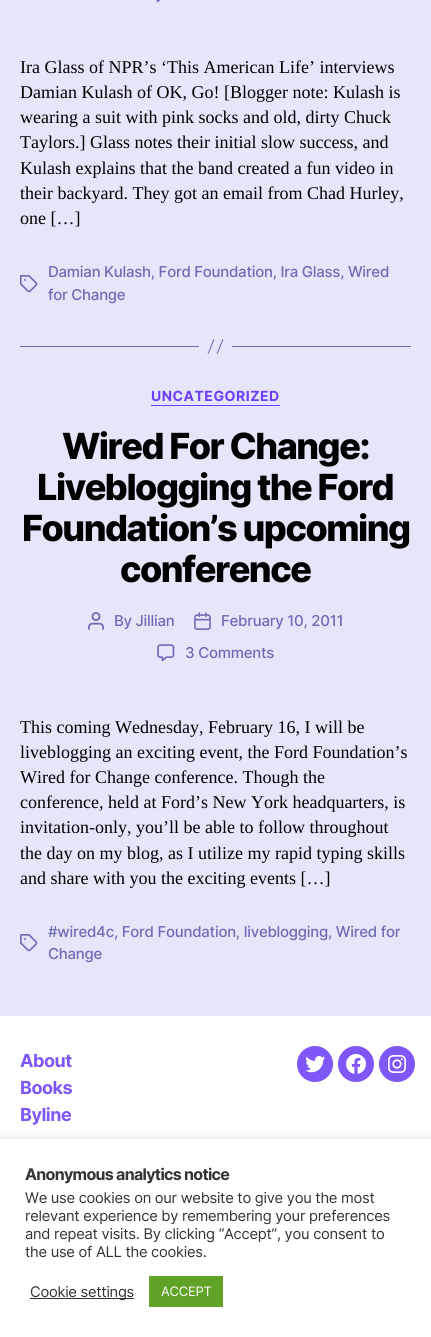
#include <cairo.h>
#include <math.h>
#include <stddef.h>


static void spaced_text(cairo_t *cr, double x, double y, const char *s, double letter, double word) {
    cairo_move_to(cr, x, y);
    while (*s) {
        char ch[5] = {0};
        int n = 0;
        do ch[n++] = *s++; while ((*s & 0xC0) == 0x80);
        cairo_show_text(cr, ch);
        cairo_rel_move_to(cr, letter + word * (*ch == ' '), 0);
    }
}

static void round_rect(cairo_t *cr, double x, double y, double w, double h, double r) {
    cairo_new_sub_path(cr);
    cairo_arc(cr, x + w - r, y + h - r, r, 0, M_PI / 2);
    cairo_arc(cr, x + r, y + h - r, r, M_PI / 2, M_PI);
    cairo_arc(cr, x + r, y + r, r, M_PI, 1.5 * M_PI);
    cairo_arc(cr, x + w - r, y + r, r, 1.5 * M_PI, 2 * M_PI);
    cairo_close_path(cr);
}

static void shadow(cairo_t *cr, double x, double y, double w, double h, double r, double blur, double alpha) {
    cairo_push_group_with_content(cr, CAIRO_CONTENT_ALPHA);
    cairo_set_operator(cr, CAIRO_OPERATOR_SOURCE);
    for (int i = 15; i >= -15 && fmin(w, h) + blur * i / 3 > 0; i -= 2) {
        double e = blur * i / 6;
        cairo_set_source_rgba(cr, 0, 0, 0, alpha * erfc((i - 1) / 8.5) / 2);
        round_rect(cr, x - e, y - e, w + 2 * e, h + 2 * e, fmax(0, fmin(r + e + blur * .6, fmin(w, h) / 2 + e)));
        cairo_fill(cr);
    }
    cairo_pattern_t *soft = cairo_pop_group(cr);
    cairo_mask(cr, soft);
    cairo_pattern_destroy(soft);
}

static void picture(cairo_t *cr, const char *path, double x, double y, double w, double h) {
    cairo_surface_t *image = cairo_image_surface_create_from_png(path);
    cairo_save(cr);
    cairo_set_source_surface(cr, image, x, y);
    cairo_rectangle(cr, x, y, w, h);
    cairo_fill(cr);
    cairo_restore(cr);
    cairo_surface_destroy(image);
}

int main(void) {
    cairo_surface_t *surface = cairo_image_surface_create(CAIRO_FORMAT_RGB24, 431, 1337);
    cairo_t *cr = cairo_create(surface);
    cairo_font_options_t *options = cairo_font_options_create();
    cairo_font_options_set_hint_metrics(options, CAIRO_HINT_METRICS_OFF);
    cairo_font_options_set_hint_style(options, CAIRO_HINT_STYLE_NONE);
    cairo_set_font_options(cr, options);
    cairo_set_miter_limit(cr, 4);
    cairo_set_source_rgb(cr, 0.902, 0.902, 0.98);
    cairo_paint(cr);
    picture(cr, "img1.png", 156, 0, 5, 3);
    cairo_select_font_face(cr, "Liberation Serif", CAIRO_FONT_SLANT_NORMAL, CAIRO_FONT_WEIGHT_NORMAL);
    cairo_set_font_size(cr, 18);
    cairo_set_source_rgb(cr, 0, 0, 0);
    cairo_move_to(cr, 20, 73);
    cairo_show_text(cr, "Ira Glass of NPR’s ‘This American Life’ interviews");
    cairo_move_to(cr, 20, 98);
    cairo_show_text(cr, "Damian Kulash of OK, Go! [Blogger note: Kulash is");
    cairo_move_to(cr, 20, 123);
    cairo_show_text(cr, "wearing a suit with pink socks and old, dirty Chuck");
    cairo_move_to(cr, 20, 148);
    cairo_show_text(cr, "Taylors.] Glass notes their initial slow success, and");
    cairo_move_to(cr, 20, 174);
    cairo_show_text(cr, "Kulash explains that the band created a fun video in");
    cairo_move_to(cr, 20, 199);
    cairo_show_text(cr, "their backyard. They got an email from Chad Hurley,");
    cairo_move_to(cr, 20, 224);
    cairo_show_text(cr, "one […]");
    picture(cr, "img2.png", 20, 275, 18, 18);
    cairo_select_font_face(cr, "Inter Medium", CAIRO_FONT_SLANT_NORMAL, CAIRO_FONT_WEIGHT_NORMAL);
    cairo_set_font_size(cr, 15);
    cairo_set_source_rgb(cr, 0.424, 0.424, 0.714);
    spaced_text(cr, 48, 277, "Damian Kulash, Ford Foundation, Ira Glass, Wired", -0.25, 0);
    spaced_text(cr, 48, 300, "for Change", -0.25, 0);
    cairo_rectangle(cr, 232, 346, 179, 1);
    cairo_fill(cr);
    cairo_rectangle(cr, 20, 346, 179, 1);
    cairo_fill(cr);
    cairo_new_path(cr);
    cairo_move_to(cr, 213.5, 339);
    cairo_line_to(cr, 214.5, 339.5);
    cairo_line_to(cr, 208.5, 354);
    cairo_line_to(cr, 207.5, 354);
    cairo_close_path(cr);
    cairo_move_to(cr, 222.5, 339);
    cairo_line_to(cr, 223.5, 339.5);
    cairo_line_to(cr, 217.5, 354);
    cairo_line_to(cr, 216.5, 354);
    cairo_close_path(cr);
    cairo_fill(cr);
    cairo_set_source_rgb(cr, 0.431, 0.243, 0.996);
    cairo_rectangle(cr, 151, 405, 129, 1);
    cairo_fill(cr);
    cairo_select_font_face(cr, "Inter", CAIRO_FONT_SLANT_NORMAL, CAIRO_FONT_WEIGHT_BOLD);
    cairo_set_font_size(cr, 14);
    spaced_text(cr, 151, 401, "UNCATEGORIZED", 0.5, 0);
    cairo_select_font_face(cr, "Inter ExtraBold", CAIRO_FONT_SLANT_NORMAL, CAIRO_FONT_WEIGHT_NORMAL);
    cairo_set_font_size(cr, 36);
    cairo_set_source_rgb(cr, 0, 0, 0);
    spaced_text(cr, 62, 459, "Wired For Change:", -1.5, 0);
    spaced_text(cr, 37, 500, "Liveblogging the Ford", -1.5, 0);
    spaced_text(cr, 22, 541, "Foundation’s upcoming", -1.5, 0);
    spaced_text(cr, 120, 582, "conference", -1.5, 0);
    picture(cr, "img3.png", 88, 612, 16, 18);
    cairo_select_font_face(cr, "Inter Medium", CAIRO_FONT_SLANT_NORMAL, CAIRO_FONT_WEIGHT_NORMAL);
    cairo_set_font_size(cr, 15);
    cairo_set_source_rgb(cr, 0.424, 0.424, 0.714);
    spaced_text(cr, 114, 626, "By Jillian", -0.25, 0);
    picture(cr, "img4.png", 194, 612, 17, 18);
    spaced_text(cr, 221, 626, "February 10, 2011", -0.25, 0);
    picture(cr, "img5.png", 157, 644, 18, 18);
    spaced_text(cr, 185, 658, "3 Comments", -0.25, 0);
    cairo_select_font_face(cr, "Liberation Serif", CAIRO_FONT_SLANT_NORMAL, CAIRO_FONT_WEIGHT_NORMAL);
    cairo_set_font_size(cr, 18);
    cairo_set_source_rgb(cr, 0, 0, 0);
    cairo_move_to(cr, 20, 733);
    cairo_show_text(cr, "This coming Wednesday, February 16, I will be");
    cairo_move_to(cr, 20, 758);
    cairo_show_text(cr, "liveblogging an exciting event, the Ford Foundation’s");
    cairo_move_to(cr, 20, 783);
    cairo_show_text(cr, "Wired for Change conference. Though the");
    cairo_move_to(cr, 20, 808);
    cairo_show_text(cr, "conference, held at Ford’s New York headquarters, is");
    cairo_move_to(cr, 20, 833);
    cairo_show_text(cr, "invitation-only, you’ll be able to follow throughout");
    cairo_move_to(cr, 20, 859);
    cairo_show_text(cr, "the day on my blog, as I utilize my rapid typing skills");
    cairo_move_to(cr, 20, 884);
    cairo_show_text(cr, "and share with you the exciting events […]");
    picture(cr, "img2.png", 20, 934, 18, 18);
    cairo_select_font_face(cr, "Inter Medium", CAIRO_FONT_SLANT_NORMAL, CAIRO_FONT_WEIGHT_NORMAL);
    cairo_set_font_size(cr, 15);
    cairo_set_source_rgb(cr, 0.424, 0.424, 0.714);
    spaced_text(cr, 48, 937, "#wired4c, Ford Foundation, liveblogging, Wired for", -0.25, 0);
    spaced_text(cr, 48, 959, "Change", -0.25, 0);
    cairo_set_source_rgb(cr, 1, 1, 1);
    cairo_rectangle(cr, 0, 1016, 431, 123);
    cairo_fill(cr);
    cairo_select_font_face(cr, "Inter", CAIRO_FONT_SLANT_NORMAL, CAIRO_FONT_WEIGHT_BOLD);
    cairo_set_font_size(cr, 18);
    cairo_set_source_rgb(cr, 0.498, 0.341, 0.973);
    spaced_text(cr, 20, 1067, "About", -0.5, 0);
    spaced_text(cr, 20, 1094, "Books", -0.5, 0);
    spaced_text(cr, 20, 1121, "Byline", -0.5, 0);
    cairo_new_path(cr);
    cairo_arc(cr, 315, 1064, 18, 0, 2 * M_PI);
    cairo_fill(cr);
    picture(cr, "img6.png", 305, 1056, 20, 17);
    cairo_arc(cr, 356, 1064, 18, 0, 2 * M_PI);
    cairo_fill(cr);
    picture(cr, "img7.png", 346, 1054, 20, 20);
    cairo_arc(cr, 397, 1064, 18, 0, 2 * M_PI);
    cairo_fill(cr);
    picture(cr, "img8.png", 388, 1055, 18, 18);
    cairo_set_source_rgb(cr, 0.675, 0.671, 0.671);
    shadow(cr, 0, 1138, 431, 198, 0, 5, 0.3);
    cairo_set_source_rgb(cr, 1, 1, 1);
    cairo_rectangle(cr, 0, 1139, 431, 198);
    cairo_fill(cr);
    cairo_set_font_size(cr, 16);
    cairo_set_source_rgb(cr, 0.2, 0.2, 0.2);
    spaced_text(cr, 25, 1180, "Anonymous analytics notice", -0.7, 0);
    cairo_select_font_face(cr, "Inter", CAIRO_FONT_SLANT_NORMAL, CAIRO_FONT_WEIGHT_NORMAL);
    cairo_set_font_size(cr, 14.7);
    spaced_text(cr, 25, 1203, "We use cookies on our website to give you the most", -0.27, 0);
    spaced_text(cr, 25, 1221, "relevant experience by remembering your preferences", -0.27, 0);
    spaced_text(cr, 25, 1239, "and repeat visits. By clicking “Accept”, you consent to", -0.27, 0);
    spaced_text(cr, 25, 1257, "the use of ALL the cookies.", -0.27, 0);
    cairo_rectangle(cr, 30, 1298, 104, 1);
    cairo_fill(cr);
    spaced_text(cr, 30, 1297, "Cookie settings", -0.27, 0);
    cairo_set_source_rgb(cr, 0.38, 0.635, 0.161);
    cairo_rectangle(cr, 149, 1276, 74, 31);
    cairo_fill(cr);
    cairo_set_font_size(cr, 13);
    cairo_set_source_rgb(cr, 1, 1, 1);
    spaced_text(cr, 161, 1296, "ACCEPT", -0.27, 0);
    cairo_surface_write_to_png(surface, "page.png");
    cairo_font_options_destroy(options);
    cairo_destroy(cr);
    cairo_surface_destroy(surface);
    return 0;
}
